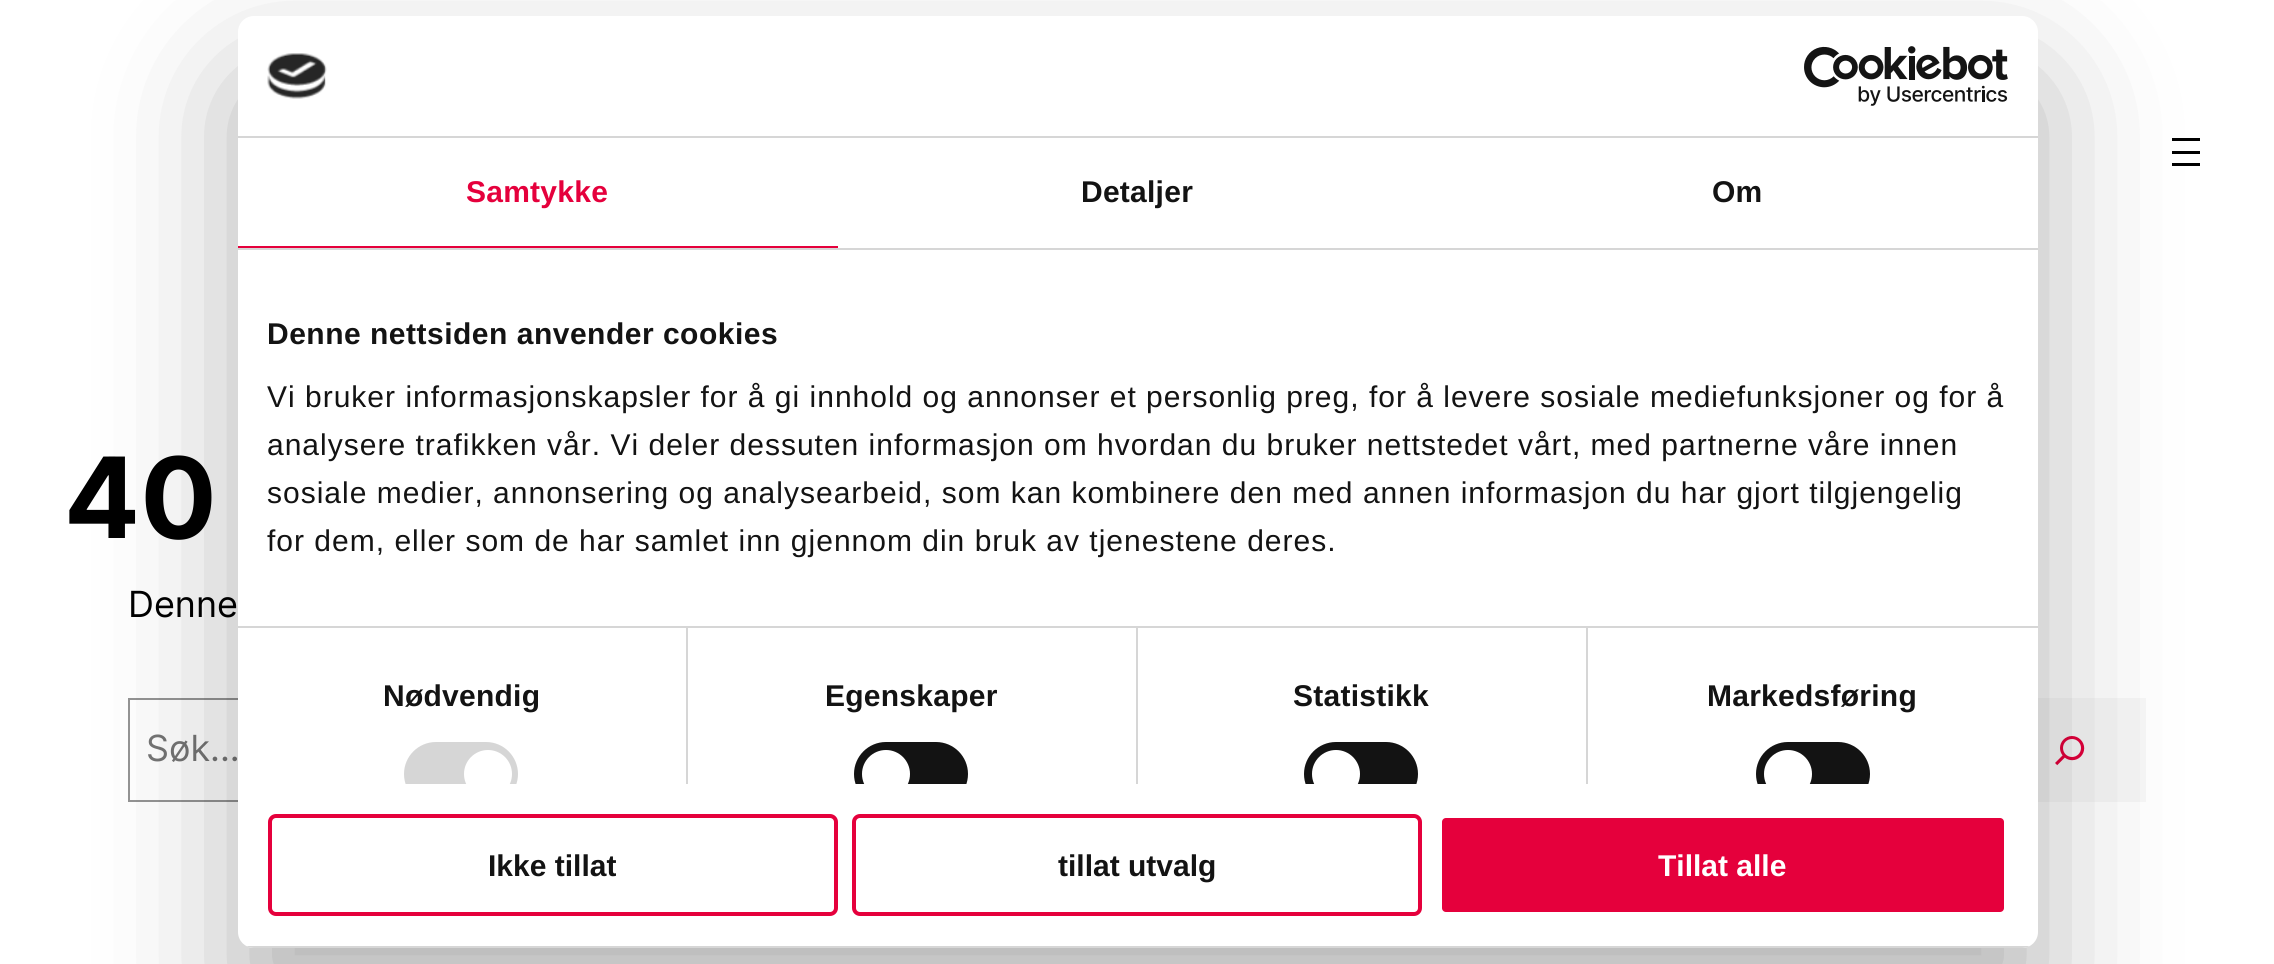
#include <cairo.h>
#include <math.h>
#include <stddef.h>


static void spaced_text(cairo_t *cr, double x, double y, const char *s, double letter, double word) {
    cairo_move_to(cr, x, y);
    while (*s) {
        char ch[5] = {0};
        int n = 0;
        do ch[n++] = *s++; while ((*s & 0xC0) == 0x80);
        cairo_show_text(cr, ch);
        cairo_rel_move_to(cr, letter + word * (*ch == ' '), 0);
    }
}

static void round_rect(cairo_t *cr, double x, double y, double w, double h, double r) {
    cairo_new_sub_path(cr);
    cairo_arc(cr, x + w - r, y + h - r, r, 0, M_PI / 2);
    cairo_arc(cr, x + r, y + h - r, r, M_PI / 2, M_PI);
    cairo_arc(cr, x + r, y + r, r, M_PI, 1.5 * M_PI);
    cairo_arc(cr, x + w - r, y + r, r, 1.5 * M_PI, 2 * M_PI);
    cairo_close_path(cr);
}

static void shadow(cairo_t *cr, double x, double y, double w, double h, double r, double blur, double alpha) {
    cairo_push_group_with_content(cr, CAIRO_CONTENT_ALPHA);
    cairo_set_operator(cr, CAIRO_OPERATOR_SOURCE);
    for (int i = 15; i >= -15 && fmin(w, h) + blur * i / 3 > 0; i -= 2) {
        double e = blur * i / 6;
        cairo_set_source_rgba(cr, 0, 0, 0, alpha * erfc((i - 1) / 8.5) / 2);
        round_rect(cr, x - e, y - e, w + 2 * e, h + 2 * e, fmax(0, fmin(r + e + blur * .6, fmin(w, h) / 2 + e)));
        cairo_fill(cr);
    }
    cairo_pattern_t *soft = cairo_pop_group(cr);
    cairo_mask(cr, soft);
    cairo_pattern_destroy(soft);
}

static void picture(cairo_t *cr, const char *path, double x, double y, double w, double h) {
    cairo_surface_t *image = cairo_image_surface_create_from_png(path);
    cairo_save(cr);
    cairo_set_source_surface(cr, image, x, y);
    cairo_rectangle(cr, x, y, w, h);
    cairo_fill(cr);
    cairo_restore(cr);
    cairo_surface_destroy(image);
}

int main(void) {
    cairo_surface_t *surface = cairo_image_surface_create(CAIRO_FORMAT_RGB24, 2274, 964);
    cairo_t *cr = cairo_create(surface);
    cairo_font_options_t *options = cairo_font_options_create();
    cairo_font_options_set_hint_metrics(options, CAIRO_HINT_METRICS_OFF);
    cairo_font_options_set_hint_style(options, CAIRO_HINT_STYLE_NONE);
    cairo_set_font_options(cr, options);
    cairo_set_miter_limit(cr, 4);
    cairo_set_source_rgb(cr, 1, 1, 1);
    cairo_paint(cr);
    cairo_set_source_rgb(cr, 0, 0, 0);
    cairo_rectangle(cr, 2172, 138, 28, 3);
    cairo_fill(cr);
    cairo_rectangle(cr, 2172, 151, 28, 3);
    cairo_fill(cr);
    cairo_rectangle(cr, 2172, 163, 28, 3);
    cairo_fill(cr);
    cairo_select_font_face(cr, "Inter", CAIRO_FONT_SLANT_NORMAL, CAIRO_FONT_WEIGHT_BOLD);
    cairo_set_font_size(cr, 112);
    cairo_move_to(cr, 64, 538);
    cairo_show_text(cr, "40");
    cairo_select_font_face(cr, "Inter", CAIRO_FONT_SLANT_NORMAL, CAIRO_FONT_WEIGHT_NORMAL);
    cairo_set_font_size(cr, 36);
    cairo_move_to(cr, 128, 617);
    cairo_show_text(cr, "Denne");
    cairo_rectangle(cr, 129, 699, 1846, 102);
    cairo_set_source_rgb(cr, 0.58, 0.58, 0.58);
    cairo_stroke(cr);
    cairo_set_source_rgb(cr, 0.459, 0.459, 0.459);
    cairo_move_to(cr, 146, 761);
    cairo_show_text(cr, "Søk...");
    cairo_set_source_rgb(cr, 0.965, 0.965, 0.965);
    cairo_rectangle(cr, 2038, 698, 108, 104);
    cairo_fill(cr);
    picture(cr, "img1.png", 2055, 736, 30, 30);
    cairo_set_source_rgb(cr, 0, 0, 0);
    shadow(cr, 238, 80, 1800, 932, 16, 68, 0.3);
    cairo_set_source_rgb(cr, 1, 1, 1);
    round_rect(cr, 238, 16, 1800, 932, 16);
    cairo_fill(cr);
    cairo_set_source_rgb(cr, 0.839, 0.839, 0.839);
    cairo_rectangle(cr, 238, 136, 1800, 2);
    cairo_fill(cr);
    picture(cr, "img2.png", 267, 53, 60, 46);
    picture(cr, "img3.png", 1804, 46, 204, 60);
    cairo_rectangle(cr, 238, 248, 1800, 2);
    cairo_fill(cr);
    cairo_set_source_rgb(cr, 0.898, 0, 0.235);
    cairo_rectangle(cr, 238, 246, 600, 2);
    cairo_fill(cr);
    cairo_select_font_face(cr, "Liberation Sans", CAIRO_FONT_SLANT_NORMAL, CAIRO_FONT_WEIGHT_BOLD);
    cairo_set_font_size(cr, 30);
    spaced_text(cr, 466, 202, "Samtykke", 0.25, 0);
    cairo_set_source_rgb(cr, 0.078, 0.078, 0.078);
    spaced_text(cr, 1081, 202, "Detaljer", 0.25, 0);
    spaced_text(cr, 1712, 202, "Om", 0.25, 0);
    cairo_set_source_rgb(cr, 0.839, 0.839, 0.839);
    cairo_rectangle(cr, 238, 626, 1800, 2);
    cairo_fill(cr);
    cairo_set_source_rgb(cr, 0.078, 0.078, 0.078);
    spaced_text(cr, 267, 344, "Denne nettsiden anvender cookies", 0.5, 0);
    cairo_select_font_face(cr, "Liberation Sans", CAIRO_FONT_SLANT_NORMAL, CAIRO_FONT_WEIGHT_NORMAL);
    spaced_text(cr, 267, 407, "Vi bruker informasjonskapsler for å gi innhold og annonser et personlig preg, for å levere sosiale mediefunksjoner og for å", 1, 0);
    spaced_text(cr, 267, 455, "analysere trafikken vår. Vi deler dessuten informasjon om hvordan du bruker nettstedet vårt, med partnerne våre innen", 1, 0);
    spaced_text(cr, 267, 503, "sosiale medier, annonsering og analysearbeid, som kan kombinere den med annen informasjon du har gjort tilgjengelig", 1, 0);
    spaced_text(cr, 267, 551, "for dem, eller som de har samlet inn gjennom din bruk av tjenestene deres.", 1, 0);
    cairo_set_source_rgb(cr, 0.839, 0.839, 0.839);
    cairo_rectangle(cr, 686, 628, 2, 156);
    cairo_fill(cr);
    cairo_select_font_face(cr, "Liberation Sans", CAIRO_FONT_SLANT_NORMAL, CAIRO_FONT_WEIGHT_BOLD);
    cairo_set_source_rgb(cr, 0.078, 0.078, 0.078);
    spaced_text(cr, 383, 706, "Nødvendig", 0.25, 0);
    cairo_save(cr);
    cairo_rectangle(cr, 238, 250, 1800, 534);
    cairo_clip(cr);
    cairo_set_source_rgb(cr, 0.839, 0.839, 0.839);
    round_rect(cr, 404, 742, 114, 64, 32);
    cairo_fill(cr);
    cairo_set_source_rgb(cr, 1, 1, 1);
    cairo_arc(cr, 488, 774, 24, 0, 2 * M_PI);
    cairo_fill(cr);
    cairo_restore(cr);
    cairo_set_source_rgb(cr, 0.839, 0.839, 0.839);
    cairo_rectangle(cr, 1136, 628, 2, 156);
    cairo_fill(cr);
    cairo_set_source_rgb(cr, 0.078, 0.078, 0.078);
    spaced_text(cr, 825, 706, "Egenskaper", 0.25, 0);
    cairo_save(cr);
    cairo_rectangle(cr, 238, 250, 1800, 534);
    cairo_clip(cr);
    round_rect(cr, 854, 742, 114, 64, 32);
    cairo_fill(cr);
    cairo_set_source_rgb(cr, 1, 1, 1);
    cairo_arc(cr, 886, 774, 24, 0, 2 * M_PI);
    cairo_fill(cr);
    cairo_restore(cr);
    cairo_set_source_rgb(cr, 0.839, 0.839, 0.839);
    cairo_rectangle(cr, 1586, 628, 2, 156);
    cairo_fill(cr);
    cairo_set_source_rgb(cr, 0.078, 0.078, 0.078);
    spaced_text(cr, 1293, 706, "Statistikk", 0.25, 0);
    cairo_save(cr);
    cairo_rectangle(cr, 238, 250, 1800, 534);
    cairo_clip(cr);
    round_rect(cr, 1304, 742, 114, 64, 32);
    cairo_fill(cr);
    cairo_set_source_rgb(cr, 1, 1, 1);
    cairo_arc(cr, 1336, 774, 24, 0, 2 * M_PI);
    cairo_fill(cr);
    cairo_restore(cr);
    spaced_text(cr, 1707, 706, "Markedsføring", 0.25, 0);
    cairo_save(cr);
    cairo_rectangle(cr, 238, 250, 1800, 534);
    cairo_clip(cr);
    round_rect(cr, 1756, 742, 114, 64, 32);
    cairo_fill(cr);
    cairo_set_source_rgb(cr, 1, 1, 1);
    cairo_arc(cr, 1788, 774, 24, 0, 2 * M_PI);
    cairo_fill(cr);
    cairo_restore(cr);
    cairo_save(cr);
    round_rect(cr, 238, 16, 1800, 932, 16);
    cairo_clip(cr);
    cairo_set_source_rgb(cr, 0.839, 0.839, 0.839);
    cairo_rectangle(cr, 238, 946, 1800, 2);
    cairo_fill(cr);
    cairo_restore(cr);
    round_rect(cr, 270, 816, 566, 98, 6);
    cairo_set_source_rgb(cr, 0.898, 0, 0.235);
    cairo_set_line_width(cr, 4);
    cairo_stroke(cr);
    cairo_set_source_rgb(cr, 0.078, 0.078, 0.078);
    cairo_move_to(cr, 488, 876);
    cairo_show_text(cr, "Ikke tillat");
    round_rect(cr, 854, 816, 566, 98, 6);
    cairo_set_source_rgb(cr, 0.898, 0, 0.235);
    cairo_stroke(cr);
    cairo_set_source_rgb(cr, 0.078, 0.078, 0.078);
    cairo_move_to(cr, 1058, 876);
    cairo_show_text(cr, "tillat utvalg");
    cairo_set_source_rgb(cr, 0.898, 0, 0.235);
    round_rect(cr, 1440, 816, 566, 98, 6);
    cairo_fill_preserve(cr);
    cairo_set_source_rgb(cr, 1, 1, 1);
    cairo_stroke(cr);
    cairo_move_to(cr, 1658, 876);
    cairo_show_text(cr, "Tillat alle");
    cairo_surface_write_to_png(surface, "page.png");
    cairo_font_options_destroy(options);
    cairo_destroy(cr);
    cairo_surface_destroy(surface);
    return 0;
}
